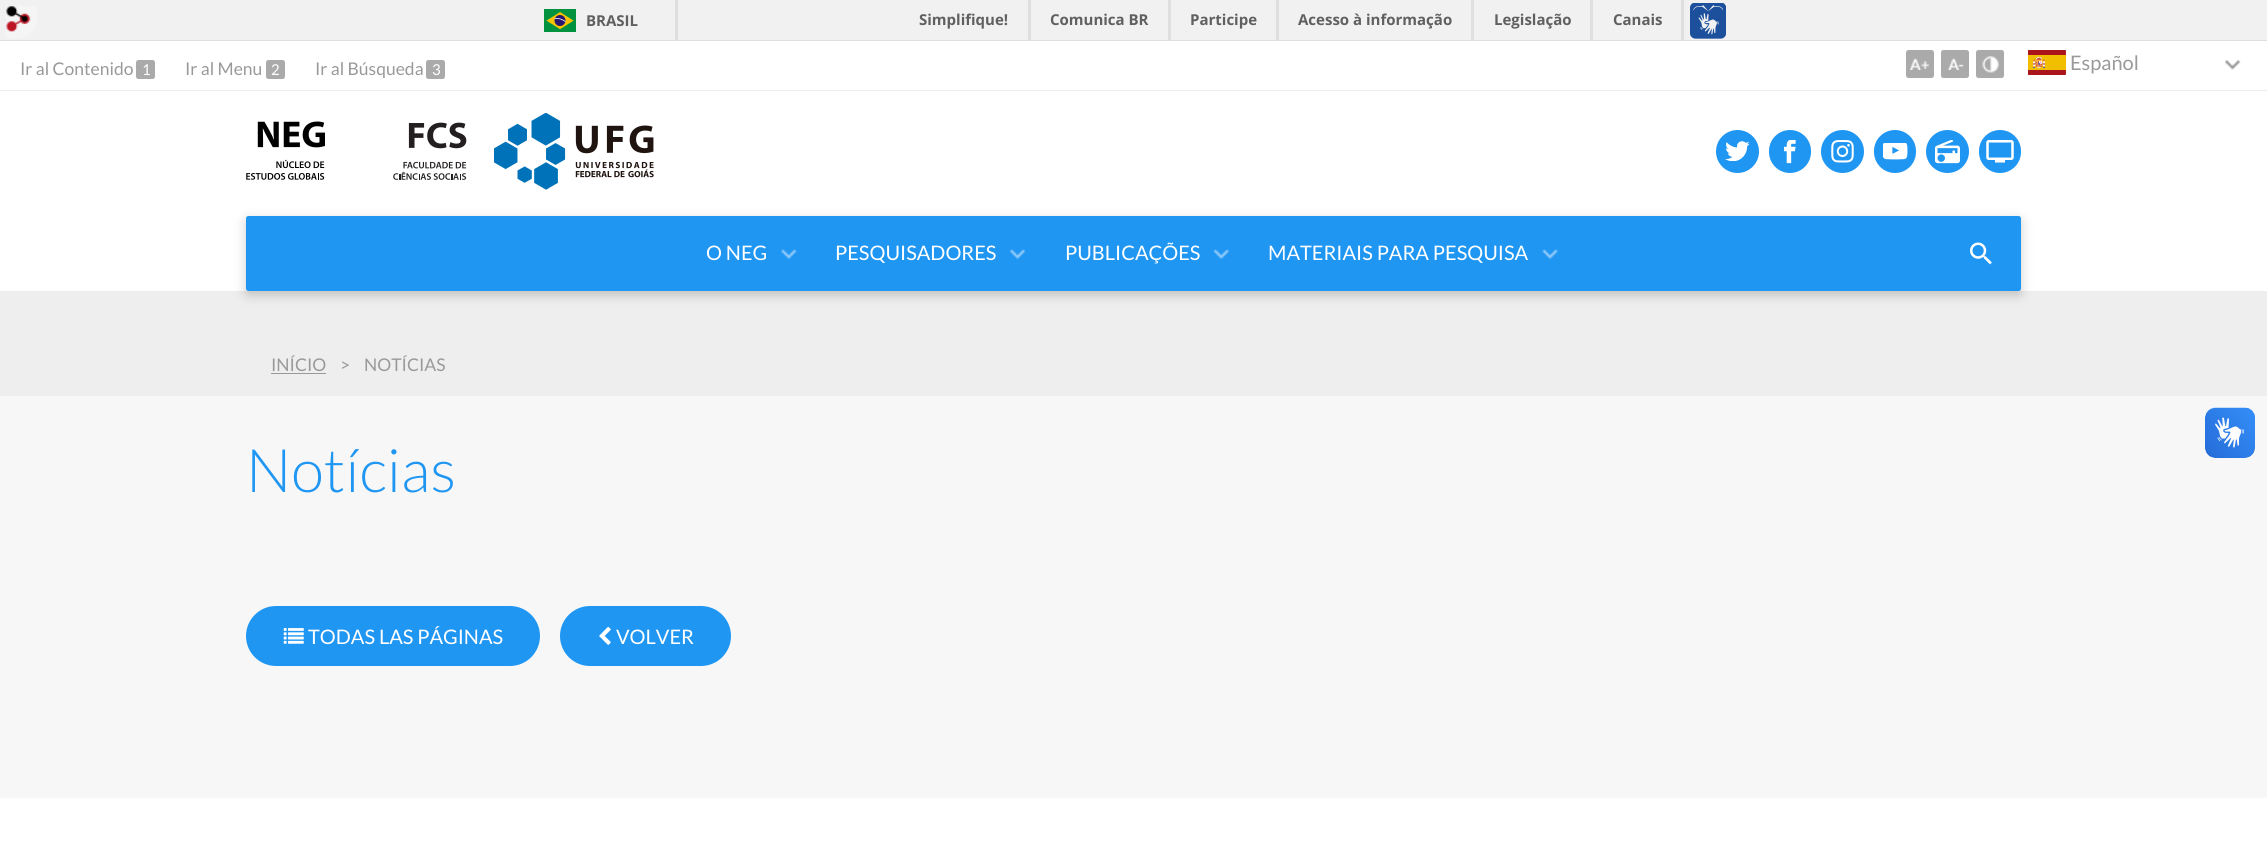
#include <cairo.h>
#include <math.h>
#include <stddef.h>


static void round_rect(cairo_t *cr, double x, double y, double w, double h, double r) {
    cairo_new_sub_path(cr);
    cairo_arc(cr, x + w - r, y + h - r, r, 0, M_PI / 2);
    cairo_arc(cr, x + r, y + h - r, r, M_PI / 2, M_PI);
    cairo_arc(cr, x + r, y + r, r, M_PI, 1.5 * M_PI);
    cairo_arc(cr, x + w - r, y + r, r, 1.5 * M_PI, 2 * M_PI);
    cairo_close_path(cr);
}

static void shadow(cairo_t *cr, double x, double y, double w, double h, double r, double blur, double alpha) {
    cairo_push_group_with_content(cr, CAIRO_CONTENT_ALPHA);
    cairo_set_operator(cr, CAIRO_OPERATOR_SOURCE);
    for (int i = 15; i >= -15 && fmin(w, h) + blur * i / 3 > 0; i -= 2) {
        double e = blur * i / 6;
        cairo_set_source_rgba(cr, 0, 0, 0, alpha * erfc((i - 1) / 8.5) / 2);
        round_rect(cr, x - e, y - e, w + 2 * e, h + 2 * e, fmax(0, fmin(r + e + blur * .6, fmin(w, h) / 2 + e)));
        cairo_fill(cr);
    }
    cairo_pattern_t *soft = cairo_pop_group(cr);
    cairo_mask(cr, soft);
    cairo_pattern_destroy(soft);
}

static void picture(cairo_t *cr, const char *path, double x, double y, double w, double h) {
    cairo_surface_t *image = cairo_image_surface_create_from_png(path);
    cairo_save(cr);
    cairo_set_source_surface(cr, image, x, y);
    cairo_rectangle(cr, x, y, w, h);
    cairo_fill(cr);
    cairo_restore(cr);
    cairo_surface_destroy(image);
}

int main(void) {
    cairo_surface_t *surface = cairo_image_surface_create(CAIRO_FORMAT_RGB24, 2267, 865);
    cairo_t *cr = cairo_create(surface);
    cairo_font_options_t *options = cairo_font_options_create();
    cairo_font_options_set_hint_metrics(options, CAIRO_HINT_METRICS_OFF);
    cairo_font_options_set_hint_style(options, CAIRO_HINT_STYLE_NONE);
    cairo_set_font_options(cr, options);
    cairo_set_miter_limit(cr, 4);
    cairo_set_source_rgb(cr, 0.965, 0.965, 0.965);
    cairo_paint(cr);
    cairo_set_source_rgb(cr, 0.945, 0.945, 0.945);
    cairo_rectangle(cr, 0, 0, 2267, 40);
    cairo_fill(cr);
    picture(cr, "img1.png", 6, 6, 31, 32);
    cairo_set_source_rgb(cr, 0.875, 0.875, 0.875);
    cairo_rectangle(cr, 0, 40, 2267, 1);
    cairo_fill(cr);
    cairo_rectangle(cr, 675, 0, 3, 40);
    cairo_fill(cr);
    picture(cr, "img2.png", 544, 9, 32, 23);
    cairo_select_font_face(cr, "Open Sans", CAIRO_FONT_SLANT_NORMAL, CAIRO_FONT_WEIGHT_BOLD);
    cairo_set_font_size(cr, 15);
    cairo_set_source_rgb(cr, 0.376, 0.376, 0.376);
    cairo_move_to(cr, 586, 26);
    cairo_show_text(cr, "BRASIL");
    cairo_set_source_rgb(cr, 0.875, 0.875, 0.875);
    cairo_rectangle(cr, 1028, 0, 3, 40);
    cairo_fill(cr);
    cairo_set_source_rgb(cr, 0.376, 0.376, 0.376);
    cairo_move_to(cr, 919, 25);
    cairo_show_text(cr, "Simplifique!");
    cairo_set_source_rgb(cr, 0.875, 0.875, 0.875);
    cairo_rectangle(cr, 1168, 0, 3, 40);
    cairo_fill(cr);
    cairo_set_source_rgb(cr, 0.376, 0.376, 0.376);
    cairo_move_to(cr, 1050, 25);
    cairo_show_text(cr, "Comunica BR");
    cairo_set_source_rgb(cr, 0.875, 0.875, 0.875);
    cairo_rectangle(cr, 1276, 0, 3, 40);
    cairo_fill(cr);
    cairo_set_source_rgb(cr, 0.376, 0.376, 0.376);
    cairo_move_to(cr, 1190, 25);
    cairo_show_text(cr, "Participe");
    cairo_set_source_rgb(cr, 0.875, 0.875, 0.875);
    cairo_rectangle(cr, 1471, 0, 3, 40);
    cairo_fill(cr);
    cairo_set_source_rgb(cr, 0.376, 0.376, 0.376);
    cairo_move_to(cr, 1298, 25);
    cairo_show_text(cr, "Acesso à informação");
    cairo_set_source_rgb(cr, 0.875, 0.875, 0.875);
    cairo_rectangle(cr, 1590, 0, 3, 40);
    cairo_fill(cr);
    cairo_set_source_rgb(cr, 0.376, 0.376, 0.376);
    cairo_move_to(cr, 1494, 25);
    cairo_show_text(cr, "Legislação");
    cairo_set_source_rgb(cr, 0.875, 0.875, 0.875);
    cairo_rectangle(cr, 1681, 0, 3, 40);
    cairo_fill(cr);
    cairo_set_source_rgb(cr, 0.376, 0.376, 0.376);
    cairo_move_to(cr, 1613, 25);
    cairo_show_text(cr, "Canais");
    picture(cr, "img3.png", 1690, 3, 36, 36);
    cairo_set_source_rgb(cr, 1, 1, 1);
    cairo_rectangle(cr, 0, 41, 2267, 49);
    cairo_fill(cr);
    cairo_set_source_rgb(cr, 0.925, 0.925, 0.925);
    cairo_rectangle(cr, 0, 90, 2267, 1);
    cairo_fill(cr);
    cairo_select_font_face(cr, "Lato", CAIRO_FONT_SLANT_NORMAL, CAIRO_FONT_WEIGHT_NORMAL);
    cairo_set_font_size(cr, 17.5);
    cairo_set_source_rgb(cr, 0.6, 0.6, 0.6);
    cairo_move_to(cr, 20, 75);
    cairo_show_text(cr, "Ir al Contenido");
    cairo_set_source_rgb(cr, 0.667, 0.667, 0.667);
    round_rect(cr, 136, 60, 19, 19, 2.5);
    cairo_fill(cr);
    cairo_set_font_size(cr, 15);
    cairo_set_source_rgb(cr, 1, 1, 1);
    cairo_move_to(cr, 142, 75);
    cairo_show_text(cr, "1");
    cairo_set_font_size(cr, 17.5);
    cairo_set_source_rgb(cr, 0.6, 0.6, 0.6);
    cairo_move_to(cr, 185, 75);
    cairo_show_text(cr, "Ir al Menu");
    cairo_set_source_rgb(cr, 0.667, 0.667, 0.667);
    round_rect(cr, 266, 60, 19, 19, 2.5);
    cairo_fill(cr);
    cairo_set_font_size(cr, 15);
    cairo_set_source_rgb(cr, 1, 1, 1);
    cairo_move_to(cr, 271, 75);
    cairo_show_text(cr, "2");
    cairo_set_font_size(cr, 17.5);
    cairo_set_source_rgb(cr, 0.6, 0.6, 0.6);
    cairo_move_to(cr, 315, 75);
    cairo_show_text(cr, "Ir al Búsqueda");
    cairo_set_source_rgb(cr, 0.667, 0.667, 0.667);
    round_rect(cr, 426, 60, 19, 19, 2.5);
    cairo_fill(cr);
    cairo_set_font_size(cr, 15);
    cairo_set_source_rgb(cr, 1, 1, 1);
    cairo_move_to(cr, 432, 75);
    cairo_show_text(cr, "3");
    cairo_set_source_rgb(cr, 0.667, 0.667, 0.667);
    round_rect(cr, 1906, 50, 28, 28, 2.5);
    cairo_fill(cr);
    picture(cr, "img4.png", 1910, 58, 19, 12);
    round_rect(cr, 1941, 50, 28, 28, 2.5);
    cairo_fill(cr);
    picture(cr, "img5.png", 1947, 58, 17, 12);
    round_rect(cr, 1976, 50, 28, 28, 2.5);
    cairo_fill(cr);
    picture(cr, "img6.png", 1982, 56, 17, 17);
    picture(cr, "img7.png", 2225, 59, 16, 11);
    picture(cr, "img8.png", 2028, 50, 38, 25);
    cairo_set_font_size(cr, 20);
    cairo_set_source_rgb(cr, 0.6, 0.6, 0.6);
    cairo_move_to(cr, 2070, 70);
    cairo_show_text(cr, "Español");
    cairo_set_source_rgb(cr, 1, 1, 1);
    cairo_rectangle(cr, 0, 91, 2267, 200);
    cairo_fill(cr);
    picture(cr, "img9.png", 246, 121, 79, 59);
    picture(cr, "img10.png", 393, 122, 74, 58);
    picture(cr, "img11.png", 494, 113, 160, 77);
    cairo_set_source_rgb(cr, 0.125, 0.588, 0.953);
    cairo_arc(cr, 1737.5, 151.5, 21.5, 0, 2 * M_PI);
    cairo_fill(cr);
    picture(cr, "img12.png", 1725, 141, 25, 20);
    round_rect(cr, 1769, 130, 42, 43, 21);
    cairo_fill(cr);
    picture(cr, "img13.png", 1784, 140, 12, 24);
    cairo_arc(cr, 1842.5, 151.5, 21.5, 0, 2 * M_PI);
    cairo_fill(cr);
    picture(cr, "img14.png", 1831, 140, 23, 23);
    round_rect(cr, 1874, 130, 42, 43, 21);
    cairo_fill(cr);
    picture(cr, "img15.png", 1883, 143, 25, 17);
    cairo_arc(cr, 1947.5, 151.5, 21.5, 0, 2 * M_PI);
    cairo_fill(cr);
    picture(cr, "img16.png", 1935, 140, 25, 24);
    round_rect(cr, 1979, 130, 42, 43, 21);
    cairo_fill(cr);
    picture(cr, "img17.png", 1986, 140, 28, 23);
    cairo_set_source_rgb(cr, 0.933, 0.933, 0.933);
    cairo_rectangle(cr, 0, 291, 2267, 105);
    cairo_fill(cr);
    cairo_set_source_rgb(cr, 0, 0, 0);
    shadow(cr, 246, 220, 1775, 75, 2.5, 6, 0.2);
    cairo_set_source_rgb(cr, 0.125, 0.588, 0.953);
    round_rect(cr, 246, 216, 1775, 75, 2.5);
    cairo_fill(cr);
    cairo_set_source_rgb(cr, 1, 1, 1);
    cairo_move_to(cr, 706, 260);
    cairo_show_text(cr, "O NEG");
    picture(cr, "img18.png", 781, 249, 16, 10);
    cairo_move_to(cr, 835, 260);
    cairo_show_text(cr, "PESQUISADORES");
    picture(cr, "img19.png", 1010, 249, 16, 10);
    cairo_move_to(cr, 1065, 260);
    cairo_show_text(cr, "PUBLICAÇÕES");
    picture(cr, "img20.png", 1213, 249, 16, 10);
    cairo_move_to(cr, 1268, 260);
    cairo_show_text(cr, "MATERIAIS PARA PESQUISA");
    picture(cr, "img21.png", 1542, 249, 16, 10);
    picture(cr, "img22.png", 1970, 242, 22, 23);
    cairo_set_font_size(cr, 17.5);
    cairo_set_source_rgb(cr, 0.6, 0.6, 0.6);
    cairo_move_to(cr, 271, 371);
    cairo_show_text(cr, "INÍCIO");
    cairo_rectangle(cr, 271, 373, 55, 1);
    cairo_fill(cr);
    cairo_move_to(cr, 340, 371);
    cairo_show_text(cr, ">");
    cairo_move_to(cr, 364, 371);
    cairo_show_text(cr, "NOTÍCIAS");
    picture(cr, "img23.png", 2205, 407, 50, 51);
    picture(cr, "img24.png", 2205, 408, 50, 50);
    cairo_select_font_face(cr, "Lato Light", CAIRO_FONT_SLANT_NORMAL, CAIRO_FONT_WEIGHT_NORMAL);
    cairo_set_font_size(cr, 60);
    cairo_set_source_rgb(cr, 0.125, 0.588, 0.953);
    cairo_move_to(cr, 246, 492);
    cairo_show_text(cr, "Notícias");
    round_rect(cr, 246, 606, 294, 60, 30);
    cairo_fill(cr);
    picture(cr, "img25.png", 283, 628, 21, 16);
    cairo_select_font_face(cr, "Lato", CAIRO_FONT_SLANT_NORMAL, CAIRO_FONT_WEIGHT_NORMAL);
    cairo_set_font_size(cr, 20);
    cairo_set_source_rgb(cr, 1, 1, 1);
    cairo_move_to(cr, 308, 644);
    cairo_show_text(cr, "TODAS LAS PÁGINAS");
    cairo_set_source_rgb(cr, 0.125, 0.588, 0.953);
    round_rect(cr, 560, 606, 171, 60, 30);
    cairo_fill(cr);
    picture(cr, "img26.png", 599, 626, 12, 19);
    cairo_set_source_rgb(cr, 1, 1, 1);
    cairo_move_to(cr, 616, 644);
    cairo_show_text(cr, "VOLVER");
    cairo_rectangle(cr, 0, 798, 2267, 67);
    cairo_fill(cr);
    cairo_surface_write_to_png(surface, "page.png");
    cairo_font_options_destroy(options);
    cairo_destroy(cr);
    cairo_surface_destroy(surface);
    return 0;
}
